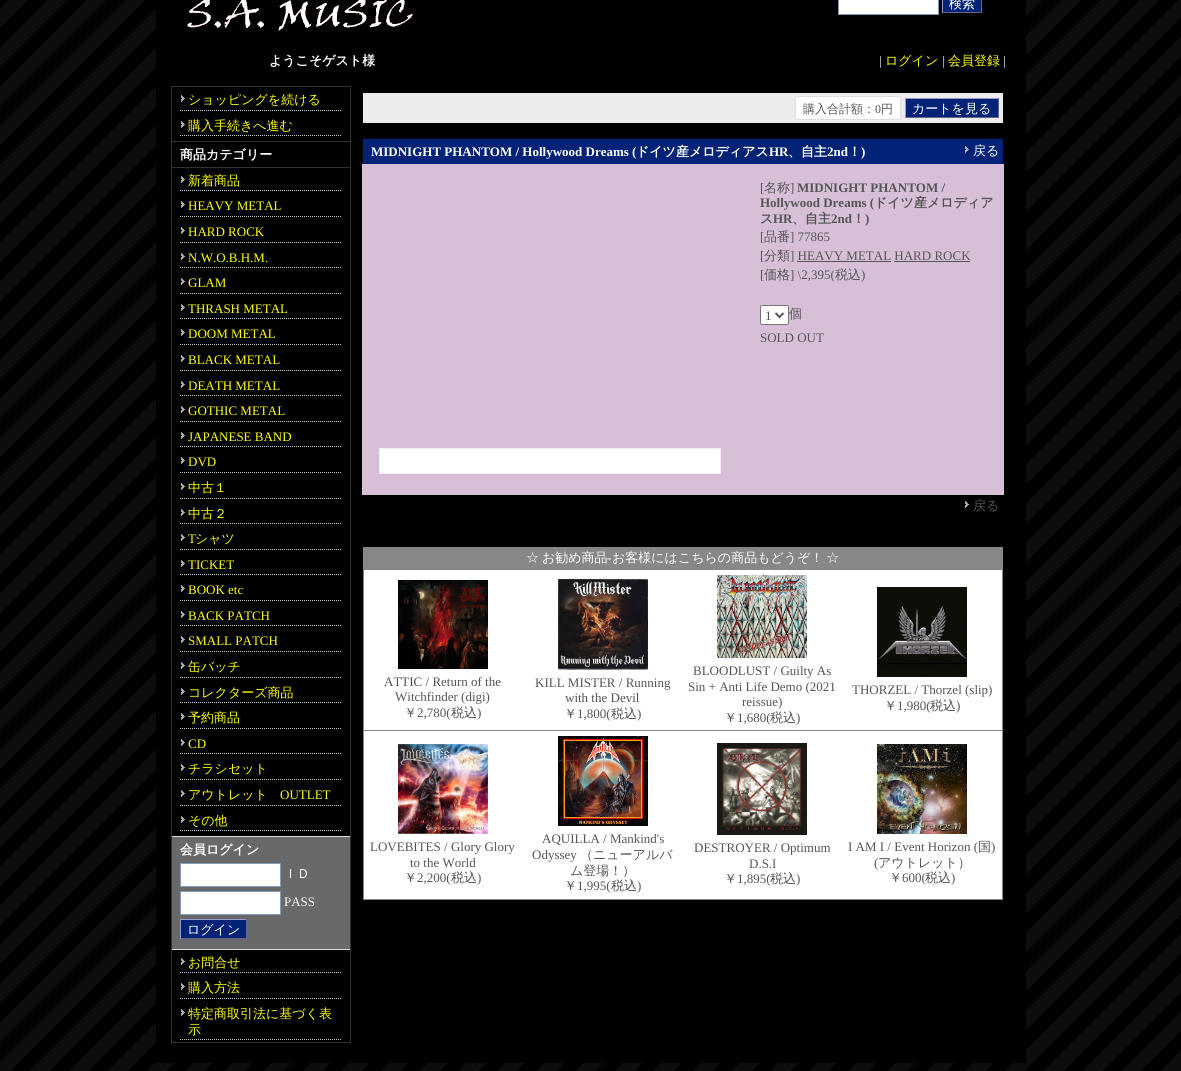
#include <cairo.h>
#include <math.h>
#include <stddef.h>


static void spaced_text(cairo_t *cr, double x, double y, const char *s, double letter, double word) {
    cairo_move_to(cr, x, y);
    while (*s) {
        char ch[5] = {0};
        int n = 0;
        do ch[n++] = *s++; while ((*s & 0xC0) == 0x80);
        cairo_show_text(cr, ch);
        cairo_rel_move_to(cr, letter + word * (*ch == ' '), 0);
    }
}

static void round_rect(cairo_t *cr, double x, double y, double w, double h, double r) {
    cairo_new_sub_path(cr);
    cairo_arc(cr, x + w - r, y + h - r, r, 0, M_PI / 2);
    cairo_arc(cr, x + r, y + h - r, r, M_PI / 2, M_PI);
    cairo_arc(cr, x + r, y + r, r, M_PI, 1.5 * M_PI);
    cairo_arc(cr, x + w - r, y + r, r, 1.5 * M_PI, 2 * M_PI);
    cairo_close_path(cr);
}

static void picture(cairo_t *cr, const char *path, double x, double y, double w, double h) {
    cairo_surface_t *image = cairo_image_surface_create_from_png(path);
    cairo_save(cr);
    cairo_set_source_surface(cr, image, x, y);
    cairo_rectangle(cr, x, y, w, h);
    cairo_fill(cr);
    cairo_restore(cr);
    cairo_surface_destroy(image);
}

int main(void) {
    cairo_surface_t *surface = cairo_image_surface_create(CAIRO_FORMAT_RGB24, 1181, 1071);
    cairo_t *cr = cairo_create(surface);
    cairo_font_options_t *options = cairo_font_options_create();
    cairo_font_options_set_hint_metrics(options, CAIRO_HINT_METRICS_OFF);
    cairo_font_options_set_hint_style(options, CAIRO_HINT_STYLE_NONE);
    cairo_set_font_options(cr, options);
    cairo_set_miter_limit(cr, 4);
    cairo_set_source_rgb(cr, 1, 1, 1);
    cairo_paint(cr);
    picture(cr, "img1.png", 0, 0, 1181, 1071);
    cairo_set_source_rgb(cr, 0, 0, 0);
    cairo_rectangle(cr, 156, 0, 870, 1063);
    cairo_fill(cr);
    picture(cr, "img2.png", 187, 0, 226, 31);
    cairo_set_source_rgb(cr, 1, 1, 1);
    cairo_rectangle(cr, 838.5, -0.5, 100, 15);
    cairo_fill_preserve(cr);
    cairo_set_source_rgb(cr, 0.498, 0.616, 0.725);
    cairo_set_line_width(cr, 1);
    cairo_stroke(cr);
    cairo_set_source_rgb(cr, 0, 0.133, 0.467);
    cairo_rectangle(cr, 943, 0, 38, 12);
    cairo_fill(cr);
    cairo_set_source_rgb(cr, 0.4, 0.4, 0.533);
    cairo_rectangle(cr, 981, 0, 1, 13);
    cairo_fill(cr);
    cairo_rectangle(cr, 942, 12, 40, 1);
    cairo_fill(cr);
    cairo_set_source_rgb(cr, 0.6, 0.6, 0.8);
    cairo_rectangle(cr, 942, 0, 1, 13);
    cairo_fill(cr);
    cairo_select_font_face(cr, "WenQuanYi Zen Hei Medium", CAIRO_FONT_SLANT_NORMAL, CAIRO_FONT_WEIGHT_NORMAL);
    cairo_set_font_size(cr, 13);
    cairo_set_source_rgb(cr, 1, 1, 1);
    cairo_move_to(cr, 949, 8);
    cairo_show_text(cr, "検索");
    cairo_select_font_face(cr, "WenQuanYi Zen Hei", CAIRO_FONT_SLANT_NORMAL, CAIRO_FONT_WEIGHT_BOLD);
    cairo_move_to(cr, 269, 65);
    cairo_show_text(cr, "ようこそゲスト様");
    cairo_select_font_face(cr, "Liberation Serif", CAIRO_FONT_SLANT_NORMAL, CAIRO_FONT_WEIGHT_NORMAL);
    cairo_move_to(cr, 879, 65);
    cairo_show_text(cr, "|");
    cairo_select_font_face(cr, "WenQuanYi Zen Hei Medium", CAIRO_FONT_SLANT_NORMAL, CAIRO_FONT_WEIGHT_NORMAL);
    cairo_set_source_rgb(cr, 1, 1, 0);
    cairo_move_to(cr, 885, 65);
    cairo_show_text(cr, "ログイン");
    cairo_select_font_face(cr, "Liberation Serif", CAIRO_FONT_SLANT_NORMAL, CAIRO_FONT_WEIGHT_NORMAL);
    cairo_set_source_rgb(cr, 1, 1, 1);
    cairo_move_to(cr, 942, 65);
    cairo_show_text(cr, "|");
    cairo_select_font_face(cr, "WenQuanYi Zen Hei Medium", CAIRO_FONT_SLANT_NORMAL, CAIRO_FONT_WEIGHT_NORMAL);
    cairo_set_source_rgb(cr, 1, 1, 0);
    cairo_move_to(cr, 948, 65);
    cairo_show_text(cr, "会員登録");
    cairo_select_font_face(cr, "Liberation Serif", CAIRO_FONT_SLANT_NORMAL, CAIRO_FONT_WEIGHT_NORMAL);
    cairo_set_source_rgb(cr, 1, 1, 1);
    cairo_move_to(cr, 1003, 65);
    cairo_show_text(cr, "|");
    cairo_rectangle(cr, 171.5, 86.5, 179, 956);
    cairo_set_source_rgb(cr, 0.2, 0.2, 0.2);
    cairo_stroke(cr);
    picture(cr, "img3.png", 181, 95, 4, 7);
    cairo_new_path(cr);
    cairo_move_to(cr, 180, 110.5);
    cairo_line_to(cr, 342, 110.5);
    cairo_set_source_rgb(cr, 0.8, 0.8, 0.8);
    cairo_set_dash(cr, (double[]){1, 1}, 2, 0);
    cairo_stroke(cr);
    cairo_select_font_face(cr, "WenQuanYi Zen Hei Medium", CAIRO_FONT_SLANT_NORMAL, CAIRO_FONT_WEIGHT_NORMAL);
    cairo_set_source_rgb(cr, 1, 1, 0);
    cairo_move_to(cr, 188, 104);
    cairo_show_text(cr, "ショッピングを続ける");
    picture(cr, "img3.png", 181, 121, 4, 7);
    cairo_new_path(cr);
    cairo_move_to(cr, 180, 135.5);
    cairo_line_to(cr, 342, 135.5);
    cairo_set_source_rgb(cr, 0.8, 0.8, 0.8);
    cairo_stroke(cr);
    cairo_set_source_rgb(cr, 1, 1, 0);
    cairo_move_to(cr, 188, 130);
    cairo_show_text(cr, "購入手続きへ進む");
    cairo_set_source_rgb(cr, 0.2, 0.2, 0.2);
    cairo_rectangle(cr, 172, 141, 178, 1);
    cairo_fill(cr);
    cairo_rectangle(cr, 172, 167, 178, 1);
    cairo_fill(cr);
    cairo_select_font_face(cr, "WenQuanYi Zen Hei", CAIRO_FONT_SLANT_NORMAL, CAIRO_FONT_WEIGHT_BOLD);
    cairo_set_source_rgb(cr, 1, 1, 1);
    cairo_move_to(cr, 180, 159);
    cairo_show_text(cr, "商品カテゴリー");
    picture(cr, "img3.png", 181, 176, 4, 7);
    cairo_new_path(cr);
    cairo_move_to(cr, 180, 190.5);
    cairo_line_to(cr, 342, 190.5);
    cairo_set_source_rgb(cr, 0.8, 0.8, 0.8);
    cairo_stroke(cr);
    cairo_select_font_face(cr, "WenQuanYi Zen Hei Medium", CAIRO_FONT_SLANT_NORMAL, CAIRO_FONT_WEIGHT_NORMAL);
    cairo_set_source_rgb(cr, 1, 1, 0);
    cairo_move_to(cr, 188, 185);
    cairo_show_text(cr, "新着商品");
    picture(cr, "img3.png", 181, 201, 4, 7);
    cairo_new_path(cr);
    cairo_move_to(cr, 180, 216.5);
    cairo_line_to(cr, 342, 216.5);
    cairo_set_source_rgb(cr, 0.8, 0.8, 0.8);
    cairo_stroke(cr);
    cairo_select_font_face(cr, "Liberation Serif", CAIRO_FONT_SLANT_NORMAL, CAIRO_FONT_WEIGHT_NORMAL);
    cairo_set_source_rgb(cr, 1, 1, 0);
    cairo_move_to(cr, 188, 210);
    cairo_show_text(cr, "HEAVY METAL");
    picture(cr, "img3.png", 181, 227, 4, 7);
    cairo_new_path(cr);
    cairo_move_to(cr, 180, 242.5);
    cairo_line_to(cr, 342, 242.5);
    cairo_set_source_rgb(cr, 0.8, 0.8, 0.8);
    cairo_stroke(cr);
    cairo_set_source_rgb(cr, 1, 1, 0);
    cairo_move_to(cr, 188, 236);
    cairo_show_text(cr, "HARD ROCK");
    picture(cr, "img3.png", 181, 253, 4, 7);
    cairo_new_path(cr);
    cairo_move_to(cr, 180, 267.5);
    cairo_line_to(cr, 342, 267.5);
    cairo_set_source_rgb(cr, 0.8, 0.8, 0.8);
    cairo_stroke(cr);
    cairo_set_source_rgb(cr, 1, 1, 0);
    cairo_move_to(cr, 188, 262);
    cairo_show_text(cr, "N.W.O.B.H.M.");
    picture(cr, "img3.png", 181, 278, 4, 7);
    cairo_new_path(cr);
    cairo_move_to(cr, 180, 293.5);
    cairo_line_to(cr, 342, 293.5);
    cairo_set_source_rgb(cr, 0.8, 0.8, 0.8);
    cairo_stroke(cr);
    cairo_set_source_rgb(cr, 1, 1, 0);
    cairo_move_to(cr, 188, 287);
    cairo_show_text(cr, "GLAM");
    picture(cr, "img3.png", 181, 304, 4, 7);
    cairo_new_path(cr);
    cairo_move_to(cr, 180, 318.5);
    cairo_line_to(cr, 342, 318.5);
    cairo_set_source_rgb(cr, 0.8, 0.8, 0.8);
    cairo_stroke(cr);
    cairo_set_source_rgb(cr, 1, 1, 0);
    cairo_move_to(cr, 188, 313);
    cairo_show_text(cr, "THRASH METAL");
    picture(cr, "img3.png", 181, 329, 4, 7);
    cairo_new_path(cr);
    cairo_move_to(cr, 180, 344.5);
    cairo_line_to(cr, 342, 344.5);
    cairo_set_source_rgb(cr, 0.8, 0.8, 0.8);
    cairo_stroke(cr);
    cairo_set_source_rgb(cr, 1, 1, 0);
    cairo_move_to(cr, 188, 338);
    cairo_show_text(cr, "DOOM METAL");
    picture(cr, "img3.png", 181, 355, 4, 7);
    cairo_new_path(cr);
    cairo_move_to(cr, 180, 370.5);
    cairo_line_to(cr, 342, 370.5);
    cairo_set_source_rgb(cr, 0.8, 0.8, 0.8);
    cairo_stroke(cr);
    cairo_set_source_rgb(cr, 1, 1, 0);
    cairo_move_to(cr, 188, 364);
    cairo_show_text(cr, "BLACK METAL");
    picture(cr, "img3.png", 181, 381, 4, 7);
    cairo_new_path(cr);
    cairo_move_to(cr, 180, 395.5);
    cairo_line_to(cr, 342, 395.5);
    cairo_set_source_rgb(cr, 0.8, 0.8, 0.8);
    cairo_stroke(cr);
    cairo_set_source_rgb(cr, 1, 1, 0);
    cairo_move_to(cr, 188, 390);
    cairo_show_text(cr, "DEATH METAL");
    picture(cr, "img3.png", 181, 406, 4, 7);
    cairo_new_path(cr);
    cairo_move_to(cr, 180, 421.5);
    cairo_line_to(cr, 342, 421.5);
    cairo_set_source_rgb(cr, 0.8, 0.8, 0.8);
    cairo_stroke(cr);
    cairo_set_source_rgb(cr, 1, 1, 0);
    cairo_move_to(cr, 188, 415);
    cairo_show_text(cr, "GOTHIC METAL");
    picture(cr, "img3.png", 181, 432, 4, 7);
    cairo_new_path(cr);
    cairo_move_to(cr, 180, 446.5);
    cairo_line_to(cr, 342, 446.5);
    cairo_set_source_rgb(cr, 0.8, 0.8, 0.8);
    cairo_stroke(cr);
    cairo_set_source_rgb(cr, 1, 1, 0);
    cairo_move_to(cr, 188, 441);
    cairo_show_text(cr, "JAPANESE BAND");
    picture(cr, "img3.png", 181, 457, 4, 7);
    cairo_new_path(cr);
    cairo_move_to(cr, 180, 472.5);
    cairo_line_to(cr, 342, 472.5);
    cairo_set_source_rgb(cr, 0.8, 0.8, 0.8);
    cairo_stroke(cr);
    cairo_set_source_rgb(cr, 1, 1, 0);
    cairo_move_to(cr, 188, 466);
    cairo_show_text(cr, "DVD");
    picture(cr, "img3.png", 181, 483, 4, 7);
    cairo_new_path(cr);
    cairo_move_to(cr, 180, 498.5);
    cairo_line_to(cr, 342, 498.5);
    cairo_set_source_rgb(cr, 0.8, 0.8, 0.8);
    cairo_stroke(cr);
    cairo_select_font_face(cr, "WenQuanYi Zen Hei Medium", CAIRO_FONT_SLANT_NORMAL, CAIRO_FONT_WEIGHT_NORMAL);
    cairo_set_source_rgb(cr, 1, 1, 0);
    cairo_move_to(cr, 188, 492);
    cairo_show_text(cr, "中古１");
    picture(cr, "img3.png", 181, 509, 4, 7);
    cairo_new_path(cr);
    cairo_move_to(cr, 180, 523.5);
    cairo_line_to(cr, 342, 523.5);
    cairo_set_source_rgb(cr, 0.8, 0.8, 0.8);
    cairo_stroke(cr);
    cairo_set_source_rgb(cr, 1, 1, 0);
    cairo_move_to(cr, 188, 518);
    cairo_show_text(cr, "中古２");
    picture(cr, "img3.png", 181, 534, 4, 7);
    cairo_new_path(cr);
    cairo_move_to(cr, 180, 549.5);
    cairo_line_to(cr, 342, 549.5);
    cairo_set_source_rgb(cr, 0.8, 0.8, 0.8);
    cairo_stroke(cr);
    cairo_select_font_face(cr, "Liberation Serif", CAIRO_FONT_SLANT_NORMAL, CAIRO_FONT_WEIGHT_NORMAL);
    cairo_set_source_rgb(cr, 1, 1, 0);
    cairo_move_to(cr, 188, 543);
    cairo_show_text(cr, "T");
    cairo_select_font_face(cr, "WenQuanYi Zen Hei Medium", CAIRO_FONT_SLANT_NORMAL, CAIRO_FONT_WEIGHT_NORMAL);
    cairo_move_to(cr, 195, 543);
    cairo_show_text(cr, "シャツ");
    picture(cr, "img3.png", 181, 560, 4, 7);
    cairo_new_path(cr);
    cairo_move_to(cr, 180, 574.5);
    cairo_line_to(cr, 342, 574.5);
    cairo_set_source_rgb(cr, 0.8, 0.8, 0.8);
    cairo_stroke(cr);
    cairo_select_font_face(cr, "Liberation Serif", CAIRO_FONT_SLANT_NORMAL, CAIRO_FONT_WEIGHT_NORMAL);
    cairo_set_source_rgb(cr, 1, 1, 0);
    cairo_move_to(cr, 188, 569);
    cairo_show_text(cr, "TICKET");
    picture(cr, "img3.png", 181, 585, 4, 7);
    cairo_new_path(cr);
    cairo_move_to(cr, 180, 600.5);
    cairo_line_to(cr, 342, 600.5);
    cairo_set_source_rgb(cr, 0.8, 0.8, 0.8);
    cairo_stroke(cr);
    cairo_set_source_rgb(cr, 1, 1, 0);
    cairo_move_to(cr, 188, 594);
    cairo_show_text(cr, "BOOK etc");
    picture(cr, "img3.png", 181, 611, 4, 7);
    cairo_new_path(cr);
    cairo_move_to(cr, 180, 625.5);
    cairo_line_to(cr, 342, 625.5);
    cairo_set_source_rgb(cr, 0.8, 0.8, 0.8);
    cairo_stroke(cr);
    cairo_set_source_rgb(cr, 1, 1, 0);
    cairo_move_to(cr, 188, 620);
    cairo_show_text(cr, "BACK PATCH");
    picture(cr, "img3.png", 181, 636, 4, 7);
    cairo_new_path(cr);
    cairo_move_to(cr, 180, 651.5);
    cairo_line_to(cr, 342, 651.5);
    cairo_set_source_rgb(cr, 0.8, 0.8, 0.8);
    cairo_stroke(cr);
    cairo_set_source_rgb(cr, 1, 1, 0);
    cairo_move_to(cr, 188, 645);
    cairo_show_text(cr, "SMALL PATCH");
    picture(cr, "img3.png", 181, 662, 4, 7);
    cairo_new_path(cr);
    cairo_move_to(cr, 180, 677.5);
    cairo_line_to(cr, 342, 677.5);
    cairo_set_source_rgb(cr, 0.8, 0.8, 0.8);
    cairo_stroke(cr);
    cairo_select_font_face(cr, "WenQuanYi Zen Hei Medium", CAIRO_FONT_SLANT_NORMAL, CAIRO_FONT_WEIGHT_NORMAL);
    cairo_set_source_rgb(cr, 1, 1, 0);
    cairo_move_to(cr, 188, 671);
    cairo_show_text(cr, "缶バッチ");
    picture(cr, "img3.png", 181, 688, 4, 7);
    cairo_new_path(cr);
    cairo_move_to(cr, 180, 702.5);
    cairo_line_to(cr, 342, 702.5);
    cairo_set_source_rgb(cr, 0.8, 0.8, 0.8);
    cairo_stroke(cr);
    cairo_set_source_rgb(cr, 1, 1, 0);
    cairo_move_to(cr, 188, 697);
    cairo_show_text(cr, "コレクターズ商品");
    picture(cr, "img3.png", 181, 713, 4, 7);
    cairo_new_path(cr);
    cairo_move_to(cr, 180, 728.5);
    cairo_line_to(cr, 342, 728.5);
    cairo_set_source_rgb(cr, 0.8, 0.8, 0.8);
    cairo_stroke(cr);
    cairo_set_source_rgb(cr, 1, 1, 0);
    cairo_move_to(cr, 188, 722);
    cairo_show_text(cr, "予約商品");
    picture(cr, "img3.png", 181, 739, 4, 7);
    cairo_new_path(cr);
    cairo_move_to(cr, 180, 753.5);
    cairo_line_to(cr, 342, 753.5);
    cairo_set_source_rgb(cr, 0.8, 0.8, 0.8);
    cairo_stroke(cr);
    cairo_select_font_face(cr, "Liberation Serif", CAIRO_FONT_SLANT_NORMAL, CAIRO_FONT_WEIGHT_NORMAL);
    cairo_set_source_rgb(cr, 1, 1, 0);
    cairo_move_to(cr, 188, 748);
    cairo_show_text(cr, "CD");
    picture(cr, "img3.png", 181, 764, 4, 7);
    cairo_new_path(cr);
    cairo_move_to(cr, 180, 779.5);
    cairo_line_to(cr, 342, 779.5);
    cairo_set_source_rgb(cr, 0.8, 0.8, 0.8);
    cairo_stroke(cr);
    cairo_select_font_face(cr, "WenQuanYi Zen Hei Medium", CAIRO_FONT_SLANT_NORMAL, CAIRO_FONT_WEIGHT_NORMAL);
    cairo_set_source_rgb(cr, 1, 1, 0);
    cairo_move_to(cr, 188, 773);
    cairo_show_text(cr, "チラシセット");
    picture(cr, "img3.png", 181, 790, 4, 7);
    cairo_new_path(cr);
    cairo_move_to(cr, 180, 805.5);
    cairo_line_to(cr, 342, 805.5);
    cairo_set_source_rgb(cr, 0.8, 0.8, 0.8);
    cairo_stroke(cr);
    cairo_set_source_rgb(cr, 1, 1, 0);
    cairo_move_to(cr, 188, 799);
    cairo_show_text(cr, "アウトレット");
    cairo_select_font_face(cr, "Liberation Serif", CAIRO_FONT_SLANT_NORMAL, CAIRO_FONT_WEIGHT_NORMAL);
    cairo_move_to(cr, 280, 799);
    cairo_show_text(cr, "OUTLET");
    picture(cr, "img3.png", 181, 816, 4, 7);
    cairo_new_path(cr);
    cairo_move_to(cr, 180, 830.5);
    cairo_line_to(cr, 342, 830.5);
    cairo_set_source_rgb(cr, 0.8, 0.8, 0.8);
    cairo_stroke(cr);
    cairo_select_font_face(cr, "WenQuanYi Zen Hei Medium", CAIRO_FONT_SLANT_NORMAL, CAIRO_FONT_WEIGHT_NORMAL);
    cairo_set_source_rgb(cr, 1, 1, 0);
    cairo_move_to(cr, 188, 825);
    cairo_show_text(cr, "その他");
    cairo_set_source_rgb(cr, 0.412, 0.412, 0.412);
    cairo_rectangle(cr, 172, 837, 178, 112);
    cairo_fill(cr);
    cairo_set_source_rgb(cr, 0.867, 0.867, 0.867);
    cairo_rectangle(cr, 172, 836, 178, 1);
    cairo_fill(cr);
    cairo_rectangle(cr, 172, 949, 178, 1);
    cairo_fill(cr);
    cairo_select_font_face(cr, "WenQuanYi Zen Hei", CAIRO_FONT_SLANT_NORMAL, CAIRO_FONT_WEIGHT_BOLD);
    cairo_set_source_rgb(cr, 1, 1, 1);
    cairo_move_to(cr, 180, 854);
    cairo_show_text(cr, "会員ログイン");
    cairo_rectangle(cr, 180.5, 863.5, 100, 23);
    cairo_fill_preserve(cr);
    cairo_set_source_rgb(cr, 0.498, 0.616, 0.725);
    cairo_set_dash(cr, NULL, 0, 0);
    cairo_stroke(cr);
    cairo_select_font_face(cr, "WenQuanYi Zen Hei Medium", CAIRO_FONT_SLANT_NORMAL, CAIRO_FONT_WEIGHT_NORMAL);
    cairo_set_source_rgb(cr, 1, 1, 1);
    cairo_move_to(cr, 284, 878);
    cairo_show_text(cr, "ＩＤ");
    cairo_rectangle(cr, 180.5, 891.5, 100, 23);
    cairo_fill_preserve(cr);
    cairo_set_source_rgb(cr, 0.498, 0.616, 0.725);
    cairo_stroke(cr);
    cairo_select_font_face(cr, "Liberation Serif", CAIRO_FONT_SLANT_NORMAL, CAIRO_FONT_WEIGHT_NORMAL);
    cairo_set_source_rgb(cr, 1, 1, 1);
    cairo_move_to(cr, 284, 906);
    cairo_show_text(cr, "PASS");
    cairo_set_source_rgb(cr, 0, 0.133, 0.467);
    cairo_rectangle(cr, 181, 920, 65, 18);
    cairo_fill(cr);
    cairo_set_source_rgb(cr, 0.6, 0.6, 0.8);
    cairo_rectangle(cr, 180, 919, 67, 1);
    cairo_fill(cr);
    cairo_set_source_rgb(cr, 0.4, 0.4, 0.533);
    cairo_rectangle(cr, 246, 919, 1, 20);
    cairo_fill(cr);
    cairo_rectangle(cr, 180, 938, 67, 1);
    cairo_fill(cr);
    cairo_set_source_rgb(cr, 0.6, 0.6, 0.8);
    cairo_rectangle(cr, 180, 919, 1, 20);
    cairo_fill(cr);
    cairo_select_font_face(cr, "WenQuanYi Zen Hei Medium", CAIRO_FONT_SLANT_NORMAL, CAIRO_FONT_WEIGHT_NORMAL);
    cairo_set_source_rgb(cr, 1, 1, 1);
    cairo_move_to(cr, 187, 934);
    cairo_show_text(cr, "ログイン");
    picture(cr, "img3.png", 181, 958, 4, 7);
    cairo_new_path(cr);
    cairo_move_to(cr, 180, 972.5);
    cairo_line_to(cr, 342, 972.5);
    cairo_set_source_rgb(cr, 0.8, 0.8, 0.8);
    cairo_set_dash(cr, (double[]){1, 1}, 2, 0);
    cairo_stroke(cr);
    cairo_set_source_rgb(cr, 1, 1, 0);
    cairo_move_to(cr, 188, 967);
    cairo_show_text(cr, "お問合せ");
    picture(cr, "img3.png", 181, 983, 4, 7);
    cairo_new_path(cr);
    cairo_move_to(cr, 180, 998.5);
    cairo_line_to(cr, 342, 998.5);
    cairo_set_source_rgb(cr, 0.8, 0.8, 0.8);
    cairo_stroke(cr);
    cairo_set_source_rgb(cr, 1, 1, 0);
    cairo_move_to(cr, 188, 992);
    cairo_show_text(cr, "購入方法");
    picture(cr, "img3.png", 181, 1009, 4, 7);
    cairo_new_path(cr);
    cairo_move_to(cr, 180, 1039.5);
    cairo_line_to(cr, 342, 1039.5);
    cairo_set_source_rgb(cr, 0.8, 0.8, 0.8);
    cairo_stroke(cr);
    cairo_set_source_rgb(cr, 1, 1, 0);
    cairo_move_to(cr, 188, 1018);
    cairo_show_text(cr, "特定商取引法に基づく表");
    cairo_move_to(cr, 188, 1034);
    cairo_show_text(cr, "示");
    cairo_set_source_rgb(cr, 0.925, 0.925, 0.925);
    cairo_rectangle(cr, 363, 93, 640, 30);
    cairo_fill(cr);
    cairo_set_source_rgb(cr, 1, 1, 1);
    cairo_rectangle(cr, 795.5, 96.5, 105, 23);
    cairo_fill_preserve(cr);
    cairo_set_source_rgb(cr, 0.867, 0.867, 0.867);
    cairo_set_dash(cr, NULL, 0, 0);
    cairo_stroke(cr);
    cairo_set_font_size(cr, 12);
    cairo_set_source_rgb(cr, 0.333, 0.333, 0.333);
    cairo_move_to(cr, 803, 113);
    cairo_show_text(cr, "購入合計額：");
    cairo_select_font_face(cr, "Liberation Serif", CAIRO_FONT_SLANT_NORMAL, CAIRO_FONT_WEIGHT_NORMAL);
    cairo_move_to(cr, 875, 113);
    cairo_show_text(cr, "0");
    cairo_select_font_face(cr, "WenQuanYi Zen Hei Medium", CAIRO_FONT_SLANT_NORMAL, CAIRO_FONT_WEIGHT_NORMAL);
    cairo_move_to(cr, 881, 113);
    cairo_show_text(cr, "円");
    cairo_set_source_rgb(cr, 0, 0.133, 0.467);
    cairo_rectangle(cr, 906, 99, 92, 18);
    cairo_fill(cr);
    cairo_set_source_rgb(cr, 0.6, 0.6, 0.8);
    cairo_rectangle(cr, 905, 98, 94, 1);
    cairo_fill(cr);
    cairo_set_source_rgb(cr, 0.4, 0.4, 0.533);
    cairo_rectangle(cr, 998, 98, 1, 20);
    cairo_fill(cr);
    cairo_rectangle(cr, 905, 117, 94, 1);
    cairo_fill(cr);
    cairo_set_source_rgb(cr, 0.6, 0.6, 0.8);
    cairo_rectangle(cr, 905, 98, 1, 20);
    cairo_fill(cr);
    cairo_set_font_size(cr, 13);
    cairo_set_source_rgb(cr, 1, 1, 1);
    cairo_move_to(cr, 912, 113);
    cairo_show_text(cr, "カートを見る");
    cairo_set_source_rgb(cr, 0, 0.133, 0.467);
    cairo_rectangle(cr, 363, 139, 640, 25);
    cairo_fill(cr);
    cairo_select_font_face(cr, "Liberation Serif", CAIRO_FONT_SLANT_NORMAL, CAIRO_FONT_WEIGHT_BOLD);
    cairo_set_source_rgb(cr, 1, 1, 1);
    cairo_move_to(cr, 371, 156);
    cairo_show_text(cr, "MIDNIGHT PHANTOM / Hollywood Dreams (");
    cairo_select_font_face(cr, "WenQuanYi Zen Hei", CAIRO_FONT_SLANT_NORMAL, CAIRO_FONT_WEIGHT_BOLD);
    cairo_move_to(cr, 636, 156);
    cairo_show_text(cr, "ドイツ産メロディアス");
    cairo_select_font_face(cr, "Liberation Serif", CAIRO_FONT_SLANT_NORMAL, CAIRO_FONT_WEIGHT_BOLD);
    cairo_move_to(cr, 769, 156);
    cairo_show_text(cr, "HR");
    cairo_select_font_face(cr, "WenQuanYi Zen Hei", CAIRO_FONT_SLANT_NORMAL, CAIRO_FONT_WEIGHT_BOLD);
    cairo_move_to(cr, 788, 156);
    cairo_show_text(cr, "、自主");
    cairo_select_font_face(cr, "Liberation Serif", CAIRO_FONT_SLANT_NORMAL, CAIRO_FONT_WEIGHT_BOLD);
    cairo_move_to(cr, 827, 156);
    cairo_show_text(cr, "2nd");
    cairo_select_font_face(cr, "WenQuanYi Zen Hei", CAIRO_FONT_SLANT_NORMAL, CAIRO_FONT_WEIGHT_BOLD);
    cairo_move_to(cr, 848, 156);
    cairo_show_text(cr, "！");
    cairo_select_font_face(cr, "Liberation Serif", CAIRO_FONT_SLANT_NORMAL, CAIRO_FONT_WEIGHT_BOLD);
    cairo_move_to(cr, 861, 156);
    cairo_show_text(cr, ")");
    picture(cr, "img4.png", 965, 146, 4, 7);
    cairo_select_font_face(cr, "WenQuanYi Zen Hei Medium", CAIRO_FONT_SLANT_NORMAL, CAIRO_FONT_WEIGHT_NORMAL);
    cairo_move_to(cr, 973, 155);
    cairo_show_text(cr, "戻る");
    cairo_set_source_rgb(cr, 0.847, 0.749, 0.847);
    cairo_rectangle(cr, 362, 164, 642, 331);
    cairo_fill(cr);
    cairo_select_font_face(cr, "Liberation Serif", CAIRO_FONT_SLANT_NORMAL, CAIRO_FONT_WEIGHT_NORMAL);
    cairo_set_source_rgb(cr, 0.333, 0.333, 0.333);
    cairo_move_to(cr, 760, 192);
    cairo_show_text(cr, "[");
    cairo_select_font_face(cr, "WenQuanYi Zen Hei Medium", CAIRO_FONT_SLANT_NORMAL, CAIRO_FONT_WEIGHT_NORMAL);
    cairo_move_to(cr, 764, 192);
    cairo_show_text(cr, "名称");
    cairo_select_font_face(cr, "Liberation Serif", CAIRO_FONT_SLANT_NORMAL, CAIRO_FONT_WEIGHT_NORMAL);
    cairo_move_to(cr, 790, 192);
    cairo_show_text(cr, "]");
    cairo_select_font_face(cr, "Liberation Serif", CAIRO_FONT_SLANT_NORMAL, CAIRO_FONT_WEIGHT_BOLD);
    cairo_move_to(cr, 797, 192);
    cairo_show_text(cr, "MIDNIGHT PHANTOM /");
    cairo_move_to(cr, 760, 207);
    cairo_show_text(cr, "Hollywood Dreams (");
    cairo_select_font_face(cr, "WenQuanYi Zen Hei", CAIRO_FONT_SLANT_NORMAL, CAIRO_FONT_WEIGHT_BOLD);
    cairo_move_to(cr, 874, 207);
    cairo_show_text(cr, "ドイツ産メロディア");
    cairo_move_to(cr, 760, 223);
    cairo_show_text(cr, "ス");
    cairo_select_font_face(cr, "Liberation Serif", CAIRO_FONT_SLANT_NORMAL, CAIRO_FONT_WEIGHT_BOLD);
    cairo_move_to(cr, 773, 223);
    cairo_show_text(cr, "HR");
    cairo_select_font_face(cr, "WenQuanYi Zen Hei", CAIRO_FONT_SLANT_NORMAL, CAIRO_FONT_WEIGHT_BOLD);
    cairo_move_to(cr, 792, 223);
    cairo_show_text(cr, "、自主");
    cairo_select_font_face(cr, "Liberation Serif", CAIRO_FONT_SLANT_NORMAL, CAIRO_FONT_WEIGHT_BOLD);
    cairo_move_to(cr, 831, 223);
    cairo_show_text(cr, "2nd");
    cairo_select_font_face(cr, "WenQuanYi Zen Hei", CAIRO_FONT_SLANT_NORMAL, CAIRO_FONT_WEIGHT_BOLD);
    cairo_move_to(cr, 852, 223);
    cairo_show_text(cr, "！");
    cairo_select_font_face(cr, "Liberation Serif", CAIRO_FONT_SLANT_NORMAL, CAIRO_FONT_WEIGHT_BOLD);
    cairo_move_to(cr, 865, 223);
    cairo_show_text(cr, ")");
    cairo_select_font_face(cr, "Liberation Serif", CAIRO_FONT_SLANT_NORMAL, CAIRO_FONT_WEIGHT_NORMAL);
    cairo_move_to(cr, 760, 241);
    cairo_show_text(cr, "[");
    cairo_select_font_face(cr, "WenQuanYi Zen Hei Medium", CAIRO_FONT_SLANT_NORMAL, CAIRO_FONT_WEIGHT_NORMAL);
    cairo_move_to(cr, 764, 241);
    cairo_show_text(cr, "品番");
    cairo_select_font_face(cr, "Liberation Serif", CAIRO_FONT_SLANT_NORMAL, CAIRO_FONT_WEIGHT_NORMAL);
    cairo_move_to(cr, 790, 241);
    cairo_show_text(cr, "] 77865");
    cairo_move_to(cr, 760, 260);
    cairo_show_text(cr, "[");
    cairo_select_font_face(cr, "WenQuanYi Zen Hei Medium", CAIRO_FONT_SLANT_NORMAL, CAIRO_FONT_WEIGHT_NORMAL);
    cairo_move_to(cr, 764, 260);
    cairo_show_text(cr, "分類");
    cairo_select_font_face(cr, "Liberation Serif", CAIRO_FONT_SLANT_NORMAL, CAIRO_FONT_WEIGHT_NORMAL);
    cairo_move_to(cr, 790, 260);
    cairo_show_text(cr, "] HEAVY METAL HARD ROCK");
    cairo_rectangle(cr, 797, 261, 94, 1);
    cairo_fill(cr);
    cairo_rectangle(cr, 894, 261, 76, 1);
    cairo_fill(cr);
    cairo_move_to(cr, 760, 279);
    cairo_show_text(cr, "[");
    cairo_select_font_face(cr, "WenQuanYi Zen Hei Medium", CAIRO_FONT_SLANT_NORMAL, CAIRO_FONT_WEIGHT_NORMAL);
    cairo_move_to(cr, 764, 279);
    cairo_show_text(cr, "価格");
    cairo_select_font_face(cr, "Liberation Serif", CAIRO_FONT_SLANT_NORMAL, CAIRO_FONT_WEIGHT_NORMAL);
    cairo_move_to(cr, 790, 279);
    cairo_show_text(cr, "] \\2,395(");
    cairo_select_font_face(cr, "WenQuanYi Zen Hei Medium", CAIRO_FONT_SLANT_NORMAL, CAIRO_FONT_WEIGHT_NORMAL);
    cairo_move_to(cr, 835, 279);
    cairo_show_text(cr, "税込");
    cairo_select_font_face(cr, "Liberation Serif", CAIRO_FONT_SLANT_NORMAL, CAIRO_FONT_WEIGHT_NORMAL);
    cairo_move_to(cr, 861, 279);
    cairo_show_text(cr, ")");
    cairo_set_source_rgb(cr, 1, 1, 1);
    round_rect(cr, 760.5, 305.5, 28, 19, 1.5);
    cairo_fill_preserve(cr);
    cairo_set_source_rgb(cr, 0.463, 0.463, 0.463);
    cairo_stroke(cr);
    cairo_new_path(cr);
    cairo_move_to(cr, 775.5, 313);
    cairo_line_to(cr, 779.5, 317);
    cairo_line_to(cr, 783.5, 313);
    cairo_set_source_rgb(cr, 0.333, 0.333, 0.333);
    cairo_set_line_width(cr, 2);
    cairo_stroke(cr);
    cairo_move_to(cr, 765, 320);
    cairo_show_text(cr, "1");
    cairo_select_font_face(cr, "WenQuanYi Zen Hei Medium", CAIRO_FONT_SLANT_NORMAL, CAIRO_FONT_WEIGHT_NORMAL);
    cairo_move_to(cr, 789, 318);
    cairo_show_text(cr, "個");
    cairo_select_font_face(cr, "Liberation Serif", CAIRO_FONT_SLANT_NORMAL, CAIRO_FONT_WEIGHT_NORMAL);
    cairo_move_to(cr, 760, 342);
    cairo_show_text(cr, "SOLD OUT");
    cairo_set_source_rgb(cr, 1, 1, 1);
    cairo_rectangle(cr, 379.5, 448.5, 341, 25);
    cairo_fill_preserve(cr);
    cairo_set_source_rgb(cr, 0.933, 0.933, 0.933);
    cairo_set_line_width(cr, 1);
    cairo_stroke(cr);
    picture(cr, "img3.png", 965, 501, 4, 7);
    cairo_select_font_face(cr, "WenQuanYi Zen Hei Medium", CAIRO_FONT_SLANT_NORMAL, CAIRO_FONT_WEIGHT_NORMAL);
    cairo_set_source_rgb(cr, 0.333, 0.333, 0.333);
    cairo_move_to(cr, 973, 510);
    cairo_show_text(cr, "戻る");
    cairo_set_source_rgb(cr, 0.529, 0.529, 0.529);
    cairo_rectangle(cr, 363, 547, 640, 353);
    cairo_fill(cr);
    cairo_set_source_rgb(cr, 1, 1, 1);
    spaced_text(cr, 526, 562, "☆ お勧め商品", 0, -1);
    cairo_select_font_face(cr, "Liberation Serif", CAIRO_FONT_SLANT_NORMAL, CAIRO_FONT_WEIGHT_NORMAL);
    cairo_move_to(cr, 607, 562);
    cairo_show_text(cr, "-");
    cairo_select_font_face(cr, "WenQuanYi Zen Hei Medium", CAIRO_FONT_SLANT_NORMAL, CAIRO_FONT_WEIGHT_NORMAL);
    spaced_text(cr, 612, 562, "お客様にはこちらの商品もどうぞ！ ☆", 0, -1);
    cairo_rectangle(cr, 364, 570, 638, 160);
    cairo_fill(cr);
    picture(cr, "img5.png", 398, 580, 90, 89);
    cairo_select_font_face(cr, "Liberation Serif", CAIRO_FONT_SLANT_NORMAL, CAIRO_FONT_WEIGHT_NORMAL);
    cairo_set_source_rgb(cr, 0.333, 0.333, 0.333);
    cairo_move_to(cr, 384, 686);
    cairo_show_text(cr, "ATTIC / Return of the");
    cairo_move_to(cr, 395, 701);
    cairo_show_text(cr, "Witchfinder (digi)");
    cairo_select_font_face(cr, "WenQuanYi Zen Hei Medium", CAIRO_FONT_SLANT_NORMAL, CAIRO_FONT_WEIGHT_NORMAL);
    cairo_move_to(cr, 404, 717);
    cairo_show_text(cr, "￥");
    cairo_select_font_face(cr, "Liberation Serif", CAIRO_FONT_SLANT_NORMAL, CAIRO_FONT_WEIGHT_NORMAL);
    cairo_move_to(cr, 417, 717);
    cairo_show_text(cr, "2,780(");
    cairo_select_font_face(cr, "WenQuanYi Zen Hei Medium", CAIRO_FONT_SLANT_NORMAL, CAIRO_FONT_WEIGHT_NORMAL);
    cairo_move_to(cr, 451, 717);
    cairo_show_text(cr, "税込");
    cairo_select_font_face(cr, "Liberation Serif", CAIRO_FONT_SLANT_NORMAL, CAIRO_FONT_WEIGHT_NORMAL);
    cairo_move_to(cr, 477, 717);
    cairo_show_text(cr, ")");
    picture(cr, "img6.png", 558, 579, 90, 91);
    cairo_move_to(cr, 535, 687);
    cairo_show_text(cr, "KILL MISTER / Running");
    cairo_move_to(cr, 565, 702);
    cairo_show_text(cr, "with the Devil");
    cairo_select_font_face(cr, "WenQuanYi Zen Hei Medium", CAIRO_FONT_SLANT_NORMAL, CAIRO_FONT_WEIGHT_NORMAL);
    cairo_move_to(cr, 564, 718);
    cairo_show_text(cr, "￥");
    cairo_select_font_face(cr, "Liberation Serif", CAIRO_FONT_SLANT_NORMAL, CAIRO_FONT_WEIGHT_NORMAL);
    cairo_move_to(cr, 577, 718);
    cairo_show_text(cr, "1,800(");
    cairo_select_font_face(cr, "WenQuanYi Zen Hei Medium", CAIRO_FONT_SLANT_NORMAL, CAIRO_FONT_WEIGHT_NORMAL);
    cairo_move_to(cr, 611, 718);
    cairo_show_text(cr, "税込");
    cairo_select_font_face(cr, "Liberation Serif", CAIRO_FONT_SLANT_NORMAL, CAIRO_FONT_WEIGHT_NORMAL);
    cairo_move_to(cr, 637, 718);
    cairo_show_text(cr, ")");
    picture(cr, "img7.png", 717, 575, 90, 83);
    cairo_move_to(cr, 693, 675);
    cairo_show_text(cr, "BLOODLUST / Guilty As");
    cairo_move_to(cr, 688, 691);
    cairo_show_text(cr, "Sin + Anti Life Demo (2021");
    cairo_move_to(cr, 742, 706);
    cairo_show_text(cr, "reissue)");
    cairo_select_font_face(cr, "WenQuanYi Zen Hei Medium", CAIRO_FONT_SLANT_NORMAL, CAIRO_FONT_WEIGHT_NORMAL);
    cairo_move_to(cr, 724, 722);
    cairo_show_text(cr, "￥");
    cairo_select_font_face(cr, "Liberation Serif", CAIRO_FONT_SLANT_NORMAL, CAIRO_FONT_WEIGHT_NORMAL);
    cairo_move_to(cr, 737, 722);
    cairo_show_text(cr, "1,680(");
    cairo_select_font_face(cr, "WenQuanYi Zen Hei Medium", CAIRO_FONT_SLANT_NORMAL, CAIRO_FONT_WEIGHT_NORMAL);
    cairo_move_to(cr, 770, 722);
    cairo_show_text(cr, "税込");
    cairo_select_font_face(cr, "Liberation Serif", CAIRO_FONT_SLANT_NORMAL, CAIRO_FONT_WEIGHT_NORMAL);
    cairo_move_to(cr, 796, 722);
    cairo_show_text(cr, ")");
    picture(cr, "img8.png", 877, 587, 90, 90);
    cairo_move_to(cr, 852, 694);
    cairo_show_text(cr, "THORZEL / Thorzel (slip)");
    cairo_select_font_face(cr, "WenQuanYi Zen Hei Medium", CAIRO_FONT_SLANT_NORMAL, CAIRO_FONT_WEIGHT_NORMAL);
    cairo_move_to(cr, 884, 710);
    cairo_show_text(cr, "￥");
    cairo_select_font_face(cr, "Liberation Serif", CAIRO_FONT_SLANT_NORMAL, CAIRO_FONT_WEIGHT_NORMAL);
    cairo_move_to(cr, 897, 710);
    cairo_show_text(cr, "1,980(");
    cairo_select_font_face(cr, "WenQuanYi Zen Hei Medium", CAIRO_FONT_SLANT_NORMAL, CAIRO_FONT_WEIGHT_NORMAL);
    cairo_move_to(cr, 930, 710);
    cairo_show_text(cr, "税込");
    cairo_select_font_face(cr, "Liberation Serif", CAIRO_FONT_SLANT_NORMAL, CAIRO_FONT_WEIGHT_NORMAL);
    cairo_move_to(cr, 956, 710);
    cairo_show_text(cr, ")");
    cairo_set_source_rgb(cr, 1, 1, 1);
    cairo_rectangle(cr, 364, 731, 638, 168);
    cairo_fill(cr);
    picture(cr, "img9.png", 398, 744, 90, 90);
    cairo_set_source_rgb(cr, 0.333, 0.333, 0.333);
    cairo_move_to(cr, 370, 851);
    cairo_show_text(cr, "LOVEBITES / Glory Glory");
    cairo_move_to(cr, 410, 867);
    cairo_show_text(cr, "to the World");
    cairo_select_font_face(cr, "WenQuanYi Zen Hei Medium", CAIRO_FONT_SLANT_NORMAL, CAIRO_FONT_WEIGHT_NORMAL);
    cairo_move_to(cr, 404, 882);
    cairo_show_text(cr, "￥");
    cairo_select_font_face(cr, "Liberation Serif", CAIRO_FONT_SLANT_NORMAL, CAIRO_FONT_WEIGHT_NORMAL);
    cairo_move_to(cr, 417, 882);
    cairo_show_text(cr, "2,200(");
    cairo_select_font_face(cr, "WenQuanYi Zen Hei Medium", CAIRO_FONT_SLANT_NORMAL, CAIRO_FONT_WEIGHT_NORMAL);
    cairo_move_to(cr, 451, 882);
    cairo_show_text(cr, "税込");
    cairo_select_font_face(cr, "Liberation Serif", CAIRO_FONT_SLANT_NORMAL, CAIRO_FONT_WEIGHT_NORMAL);
    cairo_move_to(cr, 477, 882);
    cairo_show_text(cr, ")");
    picture(cr, "img10.png", 558, 736, 90, 90);
    cairo_move_to(cr, 542, 843);
    cairo_show_text(cr, "AQUILLA / Mankind's");
    cairo_move_to(cr, 532, 859);
    cairo_show_text(cr, "Odyssey");
    cairo_select_font_face(cr, "WenQuanYi Zen Hei Medium", CAIRO_FONT_SLANT_NORMAL, CAIRO_FONT_WEIGHT_NORMAL);
    cairo_move_to(cr, 580, 859);
    cairo_show_text(cr, "（ニューアルバ");
    cairo_move_to(cr, 570, 875);
    cairo_show_text(cr, "ム登場！）");
    cairo_move_to(cr, 564, 890);
    cairo_show_text(cr, "￥");
    cairo_select_font_face(cr, "Liberation Serif", CAIRO_FONT_SLANT_NORMAL, CAIRO_FONT_WEIGHT_NORMAL);
    cairo_move_to(cr, 577, 890);
    cairo_show_text(cr, "1,995(");
    cairo_select_font_face(cr, "WenQuanYi Zen Hei Medium", CAIRO_FONT_SLANT_NORMAL, CAIRO_FONT_WEIGHT_NORMAL);
    cairo_move_to(cr, 611, 890);
    cairo_show_text(cr, "税込");
    cairo_select_font_face(cr, "Liberation Serif", CAIRO_FONT_SLANT_NORMAL, CAIRO_FONT_WEIGHT_NORMAL);
    cairo_move_to(cr, 637, 890);
    cairo_show_text(cr, ")");
    picture(cr, "img11.png", 717, 743, 90, 92);
    cairo_move_to(cr, 694, 852);
    cairo_show_text(cr, "DESTROYER / Optimum");
    cairo_move_to(cr, 749, 868);
    cairo_show_text(cr, "D.S.I");
    cairo_select_font_face(cr, "WenQuanYi Zen Hei Medium", CAIRO_FONT_SLANT_NORMAL, CAIRO_FONT_WEIGHT_NORMAL);
    cairo_move_to(cr, 724, 883);
    cairo_show_text(cr, "￥");
    cairo_select_font_face(cr, "Liberation Serif", CAIRO_FONT_SLANT_NORMAL, CAIRO_FONT_WEIGHT_NORMAL);
    cairo_move_to(cr, 737, 883);
    cairo_show_text(cr, "1,895(");
    cairo_select_font_face(cr, "WenQuanYi Zen Hei Medium", CAIRO_FONT_SLANT_NORMAL, CAIRO_FONT_WEIGHT_NORMAL);
    cairo_move_to(cr, 770, 883);
    cairo_show_text(cr, "税込");
    cairo_select_font_face(cr, "Liberation Serif", CAIRO_FONT_SLANT_NORMAL, CAIRO_FONT_WEIGHT_NORMAL);
    cairo_move_to(cr, 796, 883);
    cairo_show_text(cr, ")");
    picture(cr, "img12.png", 877, 744, 90, 90);
    cairo_move_to(cr, 848, 851);
    cairo_show_text(cr, "I AM I / Event Horizon (");
    cairo_select_font_face(cr, "WenQuanYi Zen Hei Medium", CAIRO_FONT_SLANT_NORMAL, CAIRO_FONT_WEIGHT_NORMAL);
    cairo_move_to(cr, 978, 851);
    cairo_show_text(cr, "国");
    cairo_select_font_face(cr, "Liberation Serif", CAIRO_FONT_SLANT_NORMAL, CAIRO_FONT_WEIGHT_NORMAL);
    cairo_move_to(cr, 991, 851);
    cairo_show_text(cr, ")");
    cairo_move_to(cr, 874, 867);
    cairo_show_text(cr, "(");
    cairo_select_font_face(cr, "WenQuanYi Zen Hei Medium", CAIRO_FONT_SLANT_NORMAL, CAIRO_FONT_WEIGHT_NORMAL);
    cairo_move_to(cr, 878, 867);
    cairo_show_text(cr, "アウトレット）");
    cairo_move_to(cr, 889, 882);
    cairo_show_text(cr, "￥");
    cairo_select_font_face(cr, "Liberation Serif", CAIRO_FONT_SLANT_NORMAL, CAIRO_FONT_WEIGHT_NORMAL);
    cairo_move_to(cr, 902, 882);
    cairo_show_text(cr, "600(");
    cairo_select_font_face(cr, "WenQuanYi Zen Hei Medium", CAIRO_FONT_SLANT_NORMAL, CAIRO_FONT_WEIGHT_NORMAL);
    cairo_move_to(cr, 925, 882);
    cairo_show_text(cr, "税込");
    cairo_select_font_face(cr, "Liberation Serif", CAIRO_FONT_SLANT_NORMAL, CAIRO_FONT_WEIGHT_NORMAL);
    cairo_move_to(cr, 951, 882);
    cairo_show_text(cr, ")");
    cairo_surface_write_to_png(surface, "page.png");
    cairo_font_options_destroy(options);
    cairo_destroy(cr);
    cairo_surface_destroy(surface);
    return 0;
}
